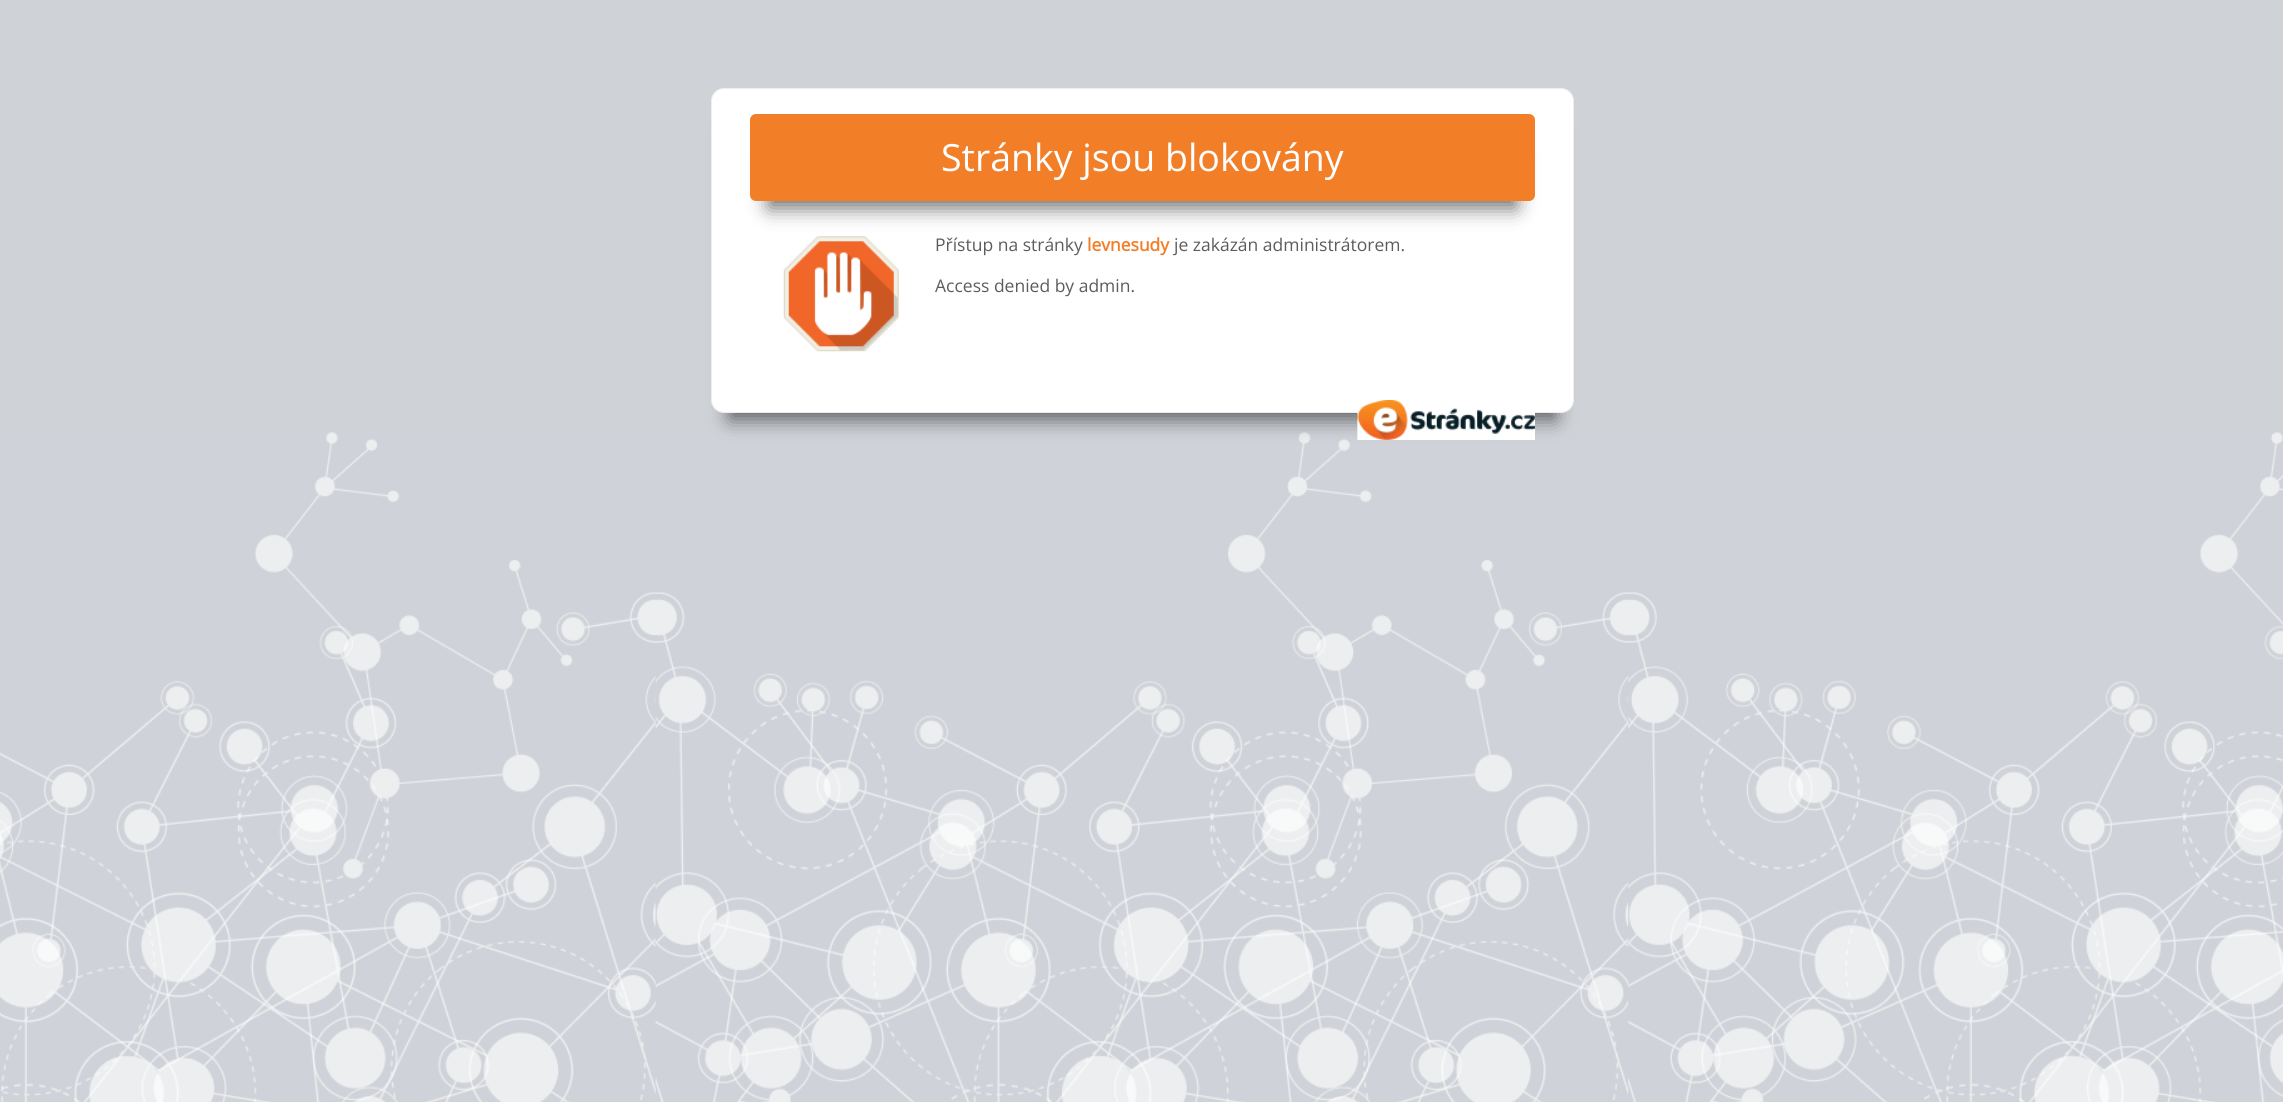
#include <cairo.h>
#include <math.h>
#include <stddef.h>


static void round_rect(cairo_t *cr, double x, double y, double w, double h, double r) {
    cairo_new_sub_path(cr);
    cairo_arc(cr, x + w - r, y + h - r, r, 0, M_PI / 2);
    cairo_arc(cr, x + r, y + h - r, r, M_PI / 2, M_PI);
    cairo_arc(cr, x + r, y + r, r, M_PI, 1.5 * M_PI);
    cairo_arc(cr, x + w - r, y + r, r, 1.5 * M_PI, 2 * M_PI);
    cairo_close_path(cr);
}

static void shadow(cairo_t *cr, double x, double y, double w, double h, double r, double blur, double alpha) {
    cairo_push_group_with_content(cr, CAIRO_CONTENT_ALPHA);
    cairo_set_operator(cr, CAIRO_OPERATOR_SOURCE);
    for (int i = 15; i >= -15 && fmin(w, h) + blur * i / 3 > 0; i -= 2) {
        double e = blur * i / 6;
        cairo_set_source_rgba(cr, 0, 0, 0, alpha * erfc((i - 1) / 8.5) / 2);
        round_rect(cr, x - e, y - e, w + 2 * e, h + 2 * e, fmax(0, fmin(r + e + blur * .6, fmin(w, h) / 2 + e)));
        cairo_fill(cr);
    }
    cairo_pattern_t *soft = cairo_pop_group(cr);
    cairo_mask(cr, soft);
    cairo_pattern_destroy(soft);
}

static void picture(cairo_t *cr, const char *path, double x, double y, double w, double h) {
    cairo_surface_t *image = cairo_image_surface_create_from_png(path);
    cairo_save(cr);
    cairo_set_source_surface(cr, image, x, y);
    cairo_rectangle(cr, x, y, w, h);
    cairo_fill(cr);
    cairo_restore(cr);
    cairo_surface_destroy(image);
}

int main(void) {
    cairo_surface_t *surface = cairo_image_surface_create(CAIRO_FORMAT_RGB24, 2283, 1102);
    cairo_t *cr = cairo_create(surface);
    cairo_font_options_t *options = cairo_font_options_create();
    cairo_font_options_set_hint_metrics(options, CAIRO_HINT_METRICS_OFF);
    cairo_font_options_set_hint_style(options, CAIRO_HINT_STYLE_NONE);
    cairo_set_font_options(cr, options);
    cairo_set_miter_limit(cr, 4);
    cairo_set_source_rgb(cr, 0.812, 0.824, 0.843);
    cairo_paint(cr);
    picture(cr, "img1.png", 0, 432, 2283, 670);
    cairo_set_source_rgb(cr, 0, 0, 0);
    shadow(cr, 730, 131, 825, 288, 0, 10, 0.57);
    cairo_set_source_rgb(cr, 1, 1, 1);
    round_rect(cr, 711.5, 88.5, 862, 324, 12.5);
    cairo_fill_preserve(cr);
    cairo_set_source_rgb(cr, 0.933, 0.933, 0.933);
    cairo_set_line_width(cr, 1);
    cairo_stroke(cr);
    cairo_set_source_rgb(cr, 0, 0, 0);
    shadow(cr, 769, 158, 747, 50, 0, 10, 0.57);
    cairo_set_source_rgb(cr, 0.949, 0.494, 0.157);
    round_rect(cr, 750, 114, 785, 87, 6);
    cairo_fill(cr);
    cairo_select_font_face(cr, "Open Sans", CAIRO_FONT_SLANT_NORMAL, CAIRO_FONT_WEIGHT_NORMAL);
    cairo_set_font_size(cr, 37.5);
    cairo_set_source_rgb(cr, 1, 1, 1);
    cairo_move_to(cr, 941, 171);
    cairo_show_text(cr, "Stránky jsou blokovány");
    picture(cr, "img2.png", 783, 236, 116, 116);
    cairo_set_font_size(cr, 17.5);
    cairo_set_source_rgb(cr, 0.361, 0.361, 0.361);
    cairo_move_to(cr, 935, 251);
    cairo_show_text(cr, "Přístup na stránky");
    cairo_select_font_face(cr, "Open Sans", CAIRO_FONT_SLANT_NORMAL, CAIRO_FONT_WEIGHT_BOLD);
    cairo_set_source_rgb(cr, 0.949, 0.494, 0.157);
    cairo_move_to(cr, 1087, 251);
    cairo_show_text(cr, "levnesudy");
    cairo_select_font_face(cr, "Open Sans", CAIRO_FONT_SLANT_NORMAL, CAIRO_FONT_WEIGHT_NORMAL);
    cairo_set_source_rgb(cr, 0.361, 0.361, 0.361);
    cairo_move_to(cr, 1174, 251);
    cairo_show_text(cr, "je zakázán administrátorem.");
    cairo_move_to(cr, 935, 292);
    cairo_show_text(cr, "Access denied by admin.");
    picture(cr, "img3.png", 1357, 400, 178, 40);
    picture(cr, "img4.png", 1357, 405, 135, 35);
    cairo_surface_write_to_png(surface, "page.png");
    cairo_font_options_destroy(options);
    cairo_destroy(cr);
    cairo_surface_destroy(surface);
    return 0;
}
